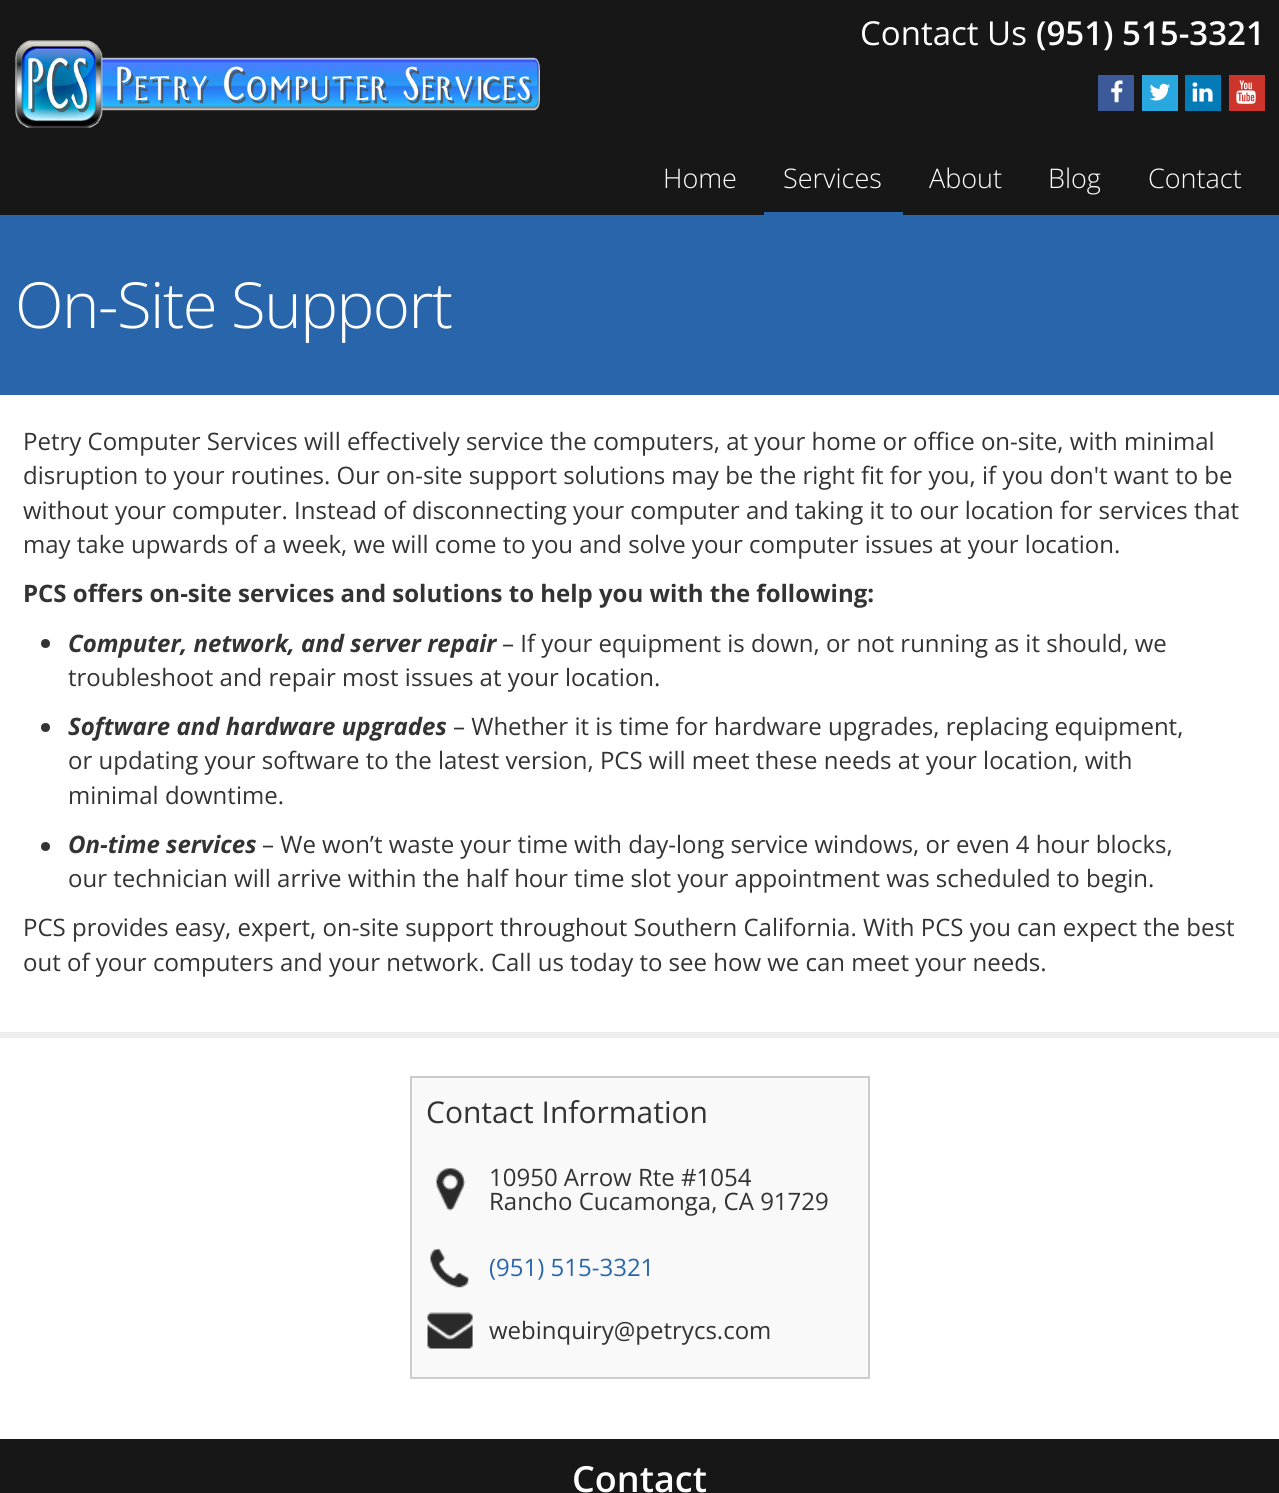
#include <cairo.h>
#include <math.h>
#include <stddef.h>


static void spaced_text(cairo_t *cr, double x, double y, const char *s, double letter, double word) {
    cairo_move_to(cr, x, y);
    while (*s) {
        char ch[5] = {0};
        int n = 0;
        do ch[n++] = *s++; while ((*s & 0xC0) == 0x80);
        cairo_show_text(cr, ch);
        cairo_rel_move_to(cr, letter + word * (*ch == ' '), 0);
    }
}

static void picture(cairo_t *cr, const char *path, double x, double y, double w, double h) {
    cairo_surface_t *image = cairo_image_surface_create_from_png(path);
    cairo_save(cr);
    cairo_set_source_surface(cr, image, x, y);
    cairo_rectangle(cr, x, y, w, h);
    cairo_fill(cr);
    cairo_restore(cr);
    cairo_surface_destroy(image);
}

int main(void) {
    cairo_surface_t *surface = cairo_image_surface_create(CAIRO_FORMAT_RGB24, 1279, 1493);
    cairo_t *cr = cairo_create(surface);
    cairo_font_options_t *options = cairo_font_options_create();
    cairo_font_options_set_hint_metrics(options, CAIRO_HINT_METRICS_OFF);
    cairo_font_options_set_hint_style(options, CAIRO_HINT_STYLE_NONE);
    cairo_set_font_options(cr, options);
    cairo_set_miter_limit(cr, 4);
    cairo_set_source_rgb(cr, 1, 1, 1);
    cairo_paint(cr);
    cairo_set_source_rgb(cr, 0.09, 0.09, 0.09);
    cairo_rectangle(cr, 0, 0, 1279, 215);
    cairo_fill(cr);
    cairo_select_font_face(cr, "Open Sans", CAIRO_FONT_SLANT_NORMAL, CAIRO_FONT_WEIGHT_NORMAL);
    cairo_set_font_size(cr, 33);
    cairo_set_source_rgb(cr, 1, 1, 1);
    cairo_move_to(cr, 860, 45);
    cairo_show_text(cr, "Contact Us");
    cairo_select_font_face(cr, "Open Sans SemiBold", CAIRO_FONT_SLANT_NORMAL, CAIRO_FONT_WEIGHT_NORMAL);
    cairo_move_to(cr, 1036, 45);
    cairo_show_text(cr, "(951) 515-3321");
    cairo_set_source_rgb(cr, 0.235, 0.353, 0.6);
    cairo_rectangle(cr, 1098, 75, 36, 36);
    cairo_fill(cr);
    picture(cr, "img1.png", 1111, 80, 12, 23);
    cairo_set_source_rgb(cr, 0.161, 0.659, 0.878);
    cairo_rectangle(cr, 1142, 75, 36, 36);
    cairo_fill(cr);
    picture(cr, "img2.png", 1149, 83, 21, 18);
    cairo_set_source_rgb(cr, 0.008, 0.482, 0.714);
    cairo_rectangle(cr, 1185, 75, 36, 36);
    cairo_fill(cr);
    picture(cr, "img3.png", 1192, 82, 21, 20);
    cairo_set_source_rgb(cr, 0.804, 0.204, 0.173);
    cairo_rectangle(cr, 1229, 75, 36, 36);
    cairo_fill(cr);
    picture(cr, "img4.png", 1236, 80, 20, 24);
    picture(cr, "img5.png", 15, 40, 525, 88);
    cairo_select_font_face(cr, "Open Sans Light", CAIRO_FONT_SLANT_NORMAL, CAIRO_FONT_WEIGHT_NORMAL);
    cairo_set_font_size(cr, 27);
    cairo_set_source_rgb(cr, 1, 1, 1);
    cairo_move_to(cr, 663, 188);
    cairo_show_text(cr, "Home");
    cairo_set_source_rgb(cr, 0.161, 0.4, 0.667);
    cairo_rectangle(cr, 764, 212, 139, 3);
    cairo_fill(cr);
    cairo_set_source_rgb(cr, 1, 1, 1);
    cairo_move_to(cr, 783, 188);
    cairo_show_text(cr, "Services");
    cairo_move_to(cr, 929, 188);
    cairo_show_text(cr, "About");
    cairo_move_to(cr, 1048, 188);
    cairo_show_text(cr, "Blog");
    cairo_move_to(cr, 1148, 188);
    cairo_show_text(cr, "Contact");
    cairo_set_source_rgb(cr, 0.161, 0.396, 0.667);
    cairo_rectangle(cr, 0, 215, 1279, 180);
    cairo_fill(cr);
    cairo_set_font_size(cr, 63.5);
    cairo_set_source_rgb(cr, 1, 1, 1);
    spaced_text(cr, 15, 328, "On-Site Support", -1.5, 0);
    cairo_select_font_face(cr, "Open Sans", CAIRO_FONT_SLANT_NORMAL, CAIRO_FONT_WEIGHT_NORMAL);
    cairo_set_font_size(cr, 24);
    cairo_set_source_rgb(cr, 0.2, 0.2, 0.2);
    cairo_move_to(cr, 23, 450);
    cairo_show_text(cr, "Petry Computer Services will effectively service the computers, at your home or office on-site, with minimal");
    cairo_move_to(cr, 23, 484);
    cairo_show_text(cr, "disruption to your routines. Our on-site support solutions may be the right fit for you, if you don't want to be");
    cairo_move_to(cr, 23, 519);
    cairo_show_text(cr, "without your computer. Instead of disconnecting your computer and taking it to our location for services that");
    cairo_move_to(cr, 23, 553);
    cairo_show_text(cr, "may take upwards of a week, we will come to you and solve your computer issues at your location.");
    cairo_select_font_face(cr, "Open Sans", CAIRO_FONT_SLANT_NORMAL, CAIRO_FONT_WEIGHT_BOLD);
    cairo_move_to(cr, 23, 602);
    cairo_show_text(cr, "PCS offers on-site services and solutions to help you with the following:");
    cairo_new_path(cr);
    cairo_arc(cr, 45.5, 643.5, 4.5, 0, 2 * M_PI);
    cairo_fill(cr);
    cairo_select_font_face(cr, "Open Sans", CAIRO_FONT_SLANT_ITALIC, CAIRO_FONT_WEIGHT_BOLD);
    cairo_move_to(cr, 68, 652);
    cairo_show_text(cr, "Computer, network, and server repair");
    cairo_select_font_face(cr, "Open Sans", CAIRO_FONT_SLANT_NORMAL, CAIRO_FONT_WEIGHT_NORMAL);
    cairo_move_to(cr, 502, 652);
    cairo_show_text(cr, "– If your equipment is down, or not running as it should, we");
    cairo_move_to(cr, 68, 686);
    cairo_show_text(cr, "troubleshoot and repair most issues at your location.");
    cairo_new_path(cr);
    cairo_arc(cr, 45.5, 727.5, 4.5, 0, 2 * M_PI);
    cairo_fill(cr);
    cairo_select_font_face(cr, "Open Sans", CAIRO_FONT_SLANT_ITALIC, CAIRO_FONT_WEIGHT_BOLD);
    cairo_move_to(cr, 68, 735);
    cairo_show_text(cr, "Software and hardware upgrades");
    cairo_select_font_face(cr, "Open Sans", CAIRO_FONT_SLANT_NORMAL, CAIRO_FONT_WEIGHT_NORMAL);
    cairo_move_to(cr, 453, 735);
    cairo_show_text(cr, "– Whether it is time for hardware upgrades, replacing equipment,");
    cairo_move_to(cr, 68, 769);
    cairo_show_text(cr, "or updating your software to the latest version, PCS will meet these needs at your location, with");
    cairo_move_to(cr, 68, 804);
    cairo_show_text(cr, "minimal downtime.");
    cairo_new_path(cr);
    cairo_arc(cr, 45.5, 846.5, 4.5, 0, 2 * M_PI);
    cairo_fill(cr);
    cairo_select_font_face(cr, "Open Sans", CAIRO_FONT_SLANT_ITALIC, CAIRO_FONT_WEIGHT_BOLD);
    cairo_move_to(cr, 68, 853);
    cairo_show_text(cr, "On-time services");
    cairo_select_font_face(cr, "Open Sans", CAIRO_FONT_SLANT_NORMAL, CAIRO_FONT_WEIGHT_NORMAL);
    cairo_move_to(cr, 262, 853);
    cairo_show_text(cr, "– We won’t waste your time with day-long service windows, or even 4 hour blocks,");
    cairo_move_to(cr, 68, 887);
    cairo_show_text(cr, "our technician will arrive within the half hour time slot your appointment was scheduled to begin.");
    cairo_move_to(cr, 23, 936);
    cairo_show_text(cr, "PCS provides easy, expert, on-site support throughout Southern California. With PCS you can expect the best");
    cairo_move_to(cr, 23, 971);
    cairo_show_text(cr, "out of your computers and your network. Call us today to see how we can meet your needs.");
    cairo_set_source_rgb(cr, 0.933, 0.933, 0.933);
    cairo_rectangle(cr, 0, 1032, 1279, 6);
    cairo_fill(cr);
    cairo_set_source_rgb(cr, 0.976, 0.976, 0.976);
    cairo_rectangle(cr, 411, 1077, 458, 301);
    cairo_fill_preserve(cr);
    cairo_set_source_rgb(cr, 0.8, 0.8, 0.8);
    cairo_stroke(cr);
    cairo_set_font_size(cr, 30);
    cairo_set_source_rgb(cr, 0.2, 0.2, 0.2);
    cairo_move_to(cr, 426, 1123);
    cairo_show_text(cr, "Contact Information");
    picture(cr, "img6.png", 436, 1168, 30, 43);
    cairo_set_font_size(cr, 24);
    cairo_move_to(cr, 489, 1186);
    cairo_show_text(cr, "10950 Arrow Rte #1054");
    cairo_move_to(cr, 489, 1210);
    cairo_show_text(cr, "Rancho Cucamonga, CA 91729");
    picture(cr, "img7.png", 430, 1248, 40, 40);
    cairo_set_source_rgb(cr, 0.161, 0.4, 0.667);
    cairo_move_to(cr, 489, 1276);
    cairo_show_text(cr, "(951) 515-3321");
    picture(cr, "img8.png", 427, 1312, 46, 37);
    cairo_set_source_rgb(cr, 0.2, 0.2, 0.2);
    cairo_move_to(cr, 489, 1339);
    cairo_show_text(cr, "webinquiry@petrycs.com");
    cairo_set_source_rgb(cr, 0.09, 0.09, 0.09);
    cairo_rectangle(cr, 0, 1439, 1279, 54);
    cairo_fill(cr);
    cairo_select_font_face(cr, "Open Sans SemiBold", CAIRO_FONT_SLANT_NORMAL, CAIRO_FONT_WEIGHT_NORMAL);
    cairo_set_font_size(cr, 36);
    cairo_set_source_rgb(cr, 1, 1, 1);
    cairo_move_to(cr, 572, 1492);
    cairo_show_text(cr, "Contact");
    cairo_surface_write_to_png(surface, "page.png");
    cairo_font_options_destroy(options);
    cairo_destroy(cr);
    cairo_surface_destroy(surface);
    return 0;
}
